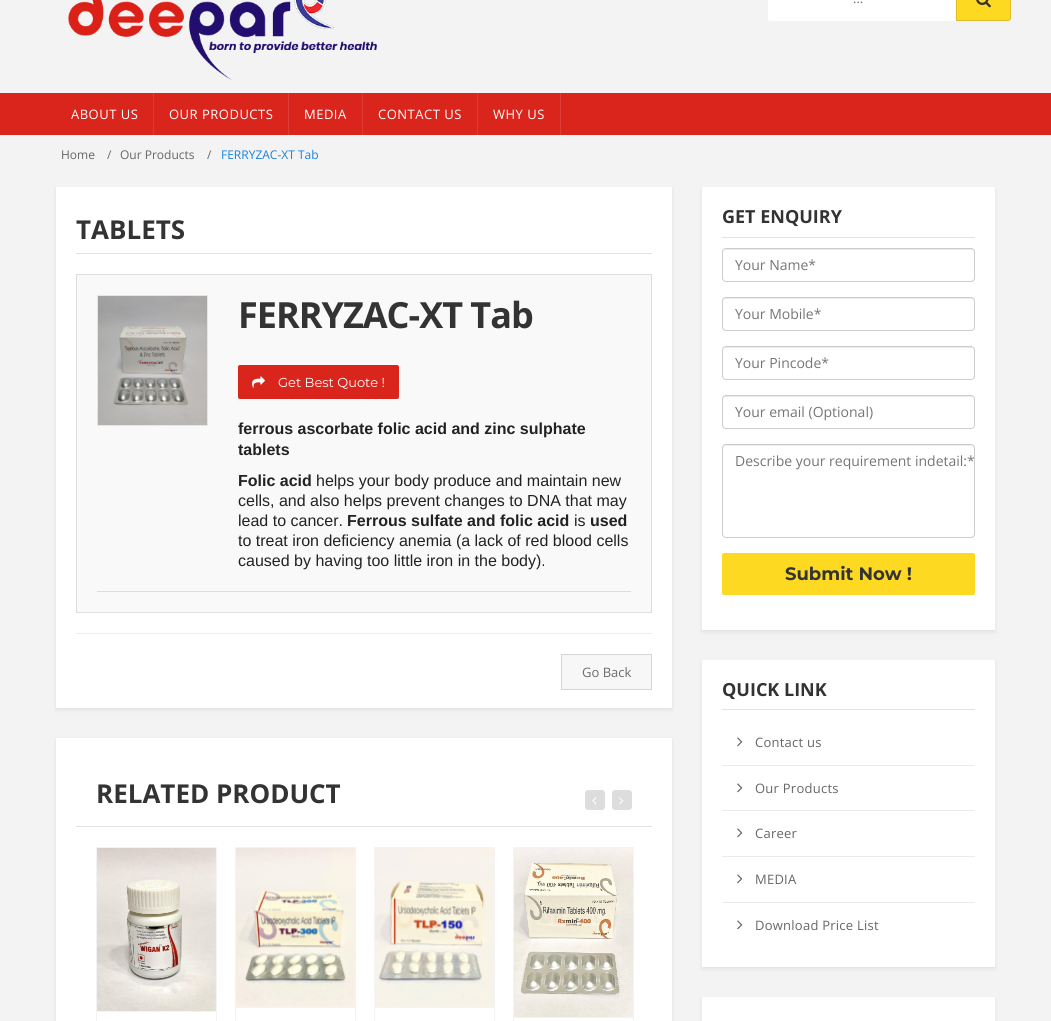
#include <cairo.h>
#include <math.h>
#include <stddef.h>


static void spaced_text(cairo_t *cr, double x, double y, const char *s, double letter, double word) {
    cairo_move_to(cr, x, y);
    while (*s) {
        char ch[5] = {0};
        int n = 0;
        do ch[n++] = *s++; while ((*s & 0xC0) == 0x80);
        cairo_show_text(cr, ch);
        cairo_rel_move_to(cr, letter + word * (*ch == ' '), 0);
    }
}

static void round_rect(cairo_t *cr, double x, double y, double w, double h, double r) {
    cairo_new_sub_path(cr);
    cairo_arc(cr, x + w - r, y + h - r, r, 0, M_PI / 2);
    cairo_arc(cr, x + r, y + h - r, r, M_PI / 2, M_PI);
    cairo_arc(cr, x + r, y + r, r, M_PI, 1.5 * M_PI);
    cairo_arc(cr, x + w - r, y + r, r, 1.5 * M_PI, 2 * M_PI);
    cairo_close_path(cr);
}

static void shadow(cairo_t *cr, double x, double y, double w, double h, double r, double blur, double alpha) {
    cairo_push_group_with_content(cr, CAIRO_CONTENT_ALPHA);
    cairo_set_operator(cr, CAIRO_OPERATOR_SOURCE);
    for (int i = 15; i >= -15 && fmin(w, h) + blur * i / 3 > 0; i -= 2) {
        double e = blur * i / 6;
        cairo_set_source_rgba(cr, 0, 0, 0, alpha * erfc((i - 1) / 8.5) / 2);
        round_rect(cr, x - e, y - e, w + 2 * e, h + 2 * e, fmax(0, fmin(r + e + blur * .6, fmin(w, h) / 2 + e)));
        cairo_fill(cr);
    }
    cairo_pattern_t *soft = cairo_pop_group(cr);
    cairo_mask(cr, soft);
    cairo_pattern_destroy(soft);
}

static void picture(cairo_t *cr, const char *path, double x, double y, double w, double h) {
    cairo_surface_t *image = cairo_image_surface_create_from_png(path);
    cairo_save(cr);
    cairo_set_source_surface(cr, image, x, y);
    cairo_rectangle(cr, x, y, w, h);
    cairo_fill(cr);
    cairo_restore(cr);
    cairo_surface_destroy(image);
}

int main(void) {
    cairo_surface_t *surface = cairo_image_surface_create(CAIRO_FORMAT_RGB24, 1051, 1021);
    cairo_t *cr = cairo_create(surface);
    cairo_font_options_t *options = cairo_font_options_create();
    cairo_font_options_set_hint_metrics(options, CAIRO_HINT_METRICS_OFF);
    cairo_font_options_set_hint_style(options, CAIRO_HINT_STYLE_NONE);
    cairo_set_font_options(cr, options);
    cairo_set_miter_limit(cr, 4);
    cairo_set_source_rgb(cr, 0.953, 0.953, 0.953);
    cairo_paint(cr);
    picture(cr, "img1.png", 68, 0, 309, 81);
    cairo_set_source_rgb(cr, 1, 1, 1);
    round_rect(cr, 768, -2, 243, 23, 2);
    cairo_fill(cr);
    cairo_select_font_face(cr, "Open Sans", CAIRO_FONT_SLANT_NORMAL, CAIRO_FONT_WEIGHT_NORMAL);
    cairo_set_font_size(cr, 13);
    cairo_set_source_rgb(cr, 0.459, 0.459, 0.459);
    cairo_move_to(cr, 853, 3);
    cairo_show_text(cr, "...");
    cairo_set_source_rgb(cr, 0.992, 0.851, 0.133);
    cairo_new_path(cr);
    cairo_move_to(cr, 956.5, -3.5);
    cairo_line_to(cr, 1008, -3.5);
    cairo_curve_to(cr, 1009.5, -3.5, 1010.5, -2.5, 1010.5, -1);
    cairo_line_to(cr, 1010.5, 18);
    cairo_curve_to(cr, 1010.5, 19.5, 1009.5, 20.5, 1008, 20.5);
    cairo_line_to(cr, 956.5, 20.5);
    cairo_close_path(cr);
    cairo_fill_preserve(cr);
    cairo_set_source_rgb(cr, 0.878, 0.737, 0.153);
    cairo_set_line_width(cr, 1);
    cairo_stroke(cr);
    picture(cr, "img2.png", 976, 0, 15, 8);
    cairo_set_source_rgb(cr, 0.855, 0.145, 0.114);
    cairo_rectangle(cr, 0, 93, 1051, 42);
    cairo_fill(cr);
    cairo_set_source_rgb(cr, 0.871, 0.231, 0.204);
    cairo_rectangle(cr, 153, 93, 1, 42);
    cairo_fill(cr);
    cairo_set_source_rgb(cr, 1, 1, 1);
    spaced_text(cr, 71, 119, "ABOUT US", 0.5, 0);
    cairo_set_source_rgb(cr, 0.871, 0.231, 0.204);
    cairo_rectangle(cr, 288, 93, 1, 42);
    cairo_fill(cr);
    cairo_set_source_rgb(cr, 1, 1, 1);
    spaced_text(cr, 169, 119, "OUR PRODUCTS", 0.5, 0);
    cairo_set_source_rgb(cr, 0.871, 0.231, 0.204);
    cairo_rectangle(cr, 362, 93, 1, 42);
    cairo_fill(cr);
    cairo_set_source_rgb(cr, 1, 1, 1);
    spaced_text(cr, 304, 119, "MEDIA", 0.5, 0);
    cairo_set_source_rgb(cr, 0.871, 0.231, 0.204);
    cairo_rectangle(cr, 477, 93, 1, 42);
    cairo_fill(cr);
    cairo_set_source_rgb(cr, 1, 1, 1);
    spaced_text(cr, 378, 119, "CONTACT US", 0.5, 0);
    cairo_set_source_rgb(cr, 0.871, 0.231, 0.204);
    cairo_rectangle(cr, 560, 93, 1, 42);
    cairo_fill(cr);
    cairo_set_source_rgb(cr, 1, 1, 1);
    spaced_text(cr, 493, 119, "WHY US", 0.5, 0);
    cairo_set_font_size(cr, 12);
    cairo_set_source_rgb(cr, 0.4, 0.4, 0.4);
    cairo_move_to(cr, 61, 159);
    cairo_show_text(cr, "Home");
    cairo_move_to(cr, 107, 159);
    cairo_show_text(cr, "/");
    cairo_move_to(cr, 120, 159);
    cairo_show_text(cr, "Our Products");
    cairo_move_to(cr, 207, 159);
    cairo_show_text(cr, "/");
    cairo_set_source_rgb(cr, 0.094, 0.51, 0.843);
    cairo_move_to(cr, 221, 159);
    cairo_show_text(cr, "FERRYZAC-XT Tab");
    cairo_set_source_rgb(cr, 0, 0, 0);
    shadow(cr, 56, 189, 616, 521, 0, 2, 0.08);
    cairo_set_source_rgb(cr, 1, 1, 1);
    cairo_rectangle(cr, 56, 187, 616, 521);
    cairo_fill(cr);
    cairo_set_source_rgb(cr, 0.89, 0.89, 0.89);
    cairo_rectangle(cr, 76, 253, 576, 1);
    cairo_fill(cr);
    cairo_select_font_face(cr, "Open Sans", CAIRO_FONT_SLANT_NORMAL, CAIRO_FONT_WEIGHT_BOLD);
    cairo_set_font_size(cr, 26);
    cairo_set_source_rgb(cr, 0.2, 0.2, 0.2);
    cairo_move_to(cr, 76, 239);
    cairo_show_text(cr, "TABLETS");
    cairo_set_source_rgb(cr, 0.973, 0.973, 0.973);
    cairo_rectangle(cr, 76.5, 274.5, 575, 338);
    cairo_fill_preserve(cr);
    cairo_set_source_rgb(cr, 0.867, 0.867, 0.867);
    cairo_stroke(cr);
    cairo_rectangle(cr, 97.5, 295.5, 110, 130);
    cairo_set_source_rgb(cr, 0.898, 0.898, 0.898);
    cairo_stroke(cr);
    picture(cr, "img3.png", 98, 296, 109, 129);
    cairo_set_font_size(cr, 36);
    cairo_set_source_rgb(cr, 0.2, 0.2, 0.2);
    spaced_text(cr, 238, 328, "FERRYZAC-XT Tab", -1, 0);
    cairo_set_source_rgb(cr, 0.855, 0.145, 0.114);
    round_rect(cr, 238, 365, 161, 34, 2);
    cairo_fill(cr);
    picture(cr, "img4.png", 252, 376, 13, 12);
    cairo_select_font_face(cr, "Montserrat", CAIRO_FONT_SLANT_NORMAL, CAIRO_FONT_WEIGHT_NORMAL);
    cairo_set_font_size(cr, 13);
    cairo_set_source_rgb(cr, 1, 1, 1);
    cairo_move_to(cr, 278, 387);
    cairo_show_text(cr, "Get Best Quote !");
    cairo_select_font_face(cr, "Liberation Sans", CAIRO_FONT_SLANT_NORMAL, CAIRO_FONT_WEIGHT_BOLD);
    cairo_set_font_size(cr, 16);
    cairo_set_source_rgb(cr, 0.133, 0.133, 0.133);
    cairo_move_to(cr, 238, 434);
    cairo_show_text(cr, "ferrous ascorbate folic acid and zinc sulphate");
    cairo_move_to(cr, 238, 455);
    cairo_show_text(cr, "tablets");
    cairo_move_to(cr, 238, 486);
    cairo_show_text(cr, "Folic acid");
    cairo_select_font_face(cr, "Liberation Sans", CAIRO_FONT_SLANT_NORMAL, CAIRO_FONT_WEIGHT_NORMAL);
    cairo_move_to(cr, 316, 486);
    cairo_show_text(cr, "helps your body produce and maintain new");
    cairo_move_to(cr, 238, 506);
    cairo_show_text(cr, "cells, and also helps prevent changes to DNA that may");
    cairo_move_to(cr, 238, 526);
    cairo_show_text(cr, "lead to cancer.");
    cairo_select_font_face(cr, "Liberation Sans", CAIRO_FONT_SLANT_NORMAL, CAIRO_FONT_WEIGHT_BOLD);
    cairo_move_to(cr, 347, 526);
    cairo_show_text(cr, "Ferrous sulfate and folic acid");
    cairo_select_font_face(cr, "Liberation Sans", CAIRO_FONT_SLANT_NORMAL, CAIRO_FONT_WEIGHT_NORMAL);
    cairo_move_to(cr, 574, 526);
    cairo_show_text(cr, "is");
    cairo_select_font_face(cr, "Liberation Sans", CAIRO_FONT_SLANT_NORMAL, CAIRO_FONT_WEIGHT_BOLD);
    cairo_move_to(cr, 590, 526);
    cairo_show_text(cr, "used");
    cairo_select_font_face(cr, "Liberation Sans", CAIRO_FONT_SLANT_NORMAL, CAIRO_FONT_WEIGHT_NORMAL);
    cairo_move_to(cr, 238, 546);
    cairo_show_text(cr, "to treat iron deficiency anemia (a lack of red blood cells");
    cairo_move_to(cr, 238, 566);
    cairo_show_text(cr, "caused by having too little iron in the body).");
    cairo_set_source_rgb(cr, 0.867, 0.867, 0.867);
    cairo_rectangle(cr, 97, 591, 534, 1);
    cairo_fill(cr);
    cairo_set_source_rgb(cr, 0.933, 0.933, 0.933);
    cairo_rectangle(cr, 76, 633, 576, 1);
    cairo_fill(cr);
    cairo_set_source_rgb(cr, 0.965, 0.965, 0.965);
    cairo_rectangle(cr, 561.5, 654.5, 90, 35);
    cairo_fill_preserve(cr);
    cairo_set_source_rgb(cr, 0.835, 0.835, 0.835);
    cairo_stroke(cr);
    cairo_select_font_face(cr, "Open Sans", CAIRO_FONT_SLANT_NORMAL, CAIRO_FONT_WEIGHT_NORMAL);
    cairo_set_font_size(cr, 13);
    cairo_set_source_rgb(cr, 0.424, 0.424, 0.424);
    cairo_move_to(cr, 582, 677);
    cairo_show_text(cr, "Go Back");
    cairo_set_source_rgb(cr, 0, 0, 0);
    shadow(cr, 56, 740, 616, 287, 0, 2, 0.08);
    cairo_set_source_rgb(cr, 1, 1, 1);
    cairo_rectangle(cr, 56, 738, 616, 283);
    cairo_fill(cr);
    cairo_set_source_rgb(cr, 0.89, 0.89, 0.89);
    cairo_rectangle(cr, 76, 826, 576, 1);
    cairo_fill(cr);
    cairo_select_font_face(cr, "Open Sans", CAIRO_FONT_SLANT_NORMAL, CAIRO_FONT_WEIGHT_BOLD);
    cairo_set_font_size(cr, 26);
    cairo_set_source_rgb(cr, 0.2, 0.2, 0.2);
    cairo_move_to(cr, 96, 803);
    cairo_show_text(cr, "RELATED PRODUCT");
    cairo_set_source_rgb(cr, 0.867, 0.867, 0.867);
    round_rect(cr, 585, 790, 20, 20, 3);
    cairo_fill(cr);
    picture(cr, "img5.png", 592, 797, 5, 8);
    round_rect(cr, 612, 790, 20, 20, 3);
    cairo_fill(cr);
    picture(cr, "img6.png", 619, 797, 5, 8);
    cairo_rectangle(cr, 96.5, 847.5, 120, 164);
    cairo_set_source_rgb(cr, 0.953, 0.953, 0.953);
    cairo_stroke(cr);
    picture(cr, "img7.png", 97, 848, 119, 163);
    cairo_new_path(cr);
    cairo_move_to(cr, 217, 1012);
    cairo_line_to(cr, 217, 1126);
    cairo_line_to(cr, 216, 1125);
    cairo_line_to(cr, 216, 1013);
    cairo_close_path(cr);
    cairo_fill(cr);
    cairo_new_path(cr);
    cairo_move_to(cr, 96, 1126);
    cairo_line_to(cr, 96, 1012);
    cairo_line_to(cr, 97, 1013);
    cairo_line_to(cr, 97, 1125);
    cairo_close_path(cr);
    cairo_fill(cr);
    cairo_rectangle(cr, 235.5, 847.5, 120, 160);
    cairo_stroke(cr);
    picture(cr, "img8.png", 236, 848, 119, 159);
    cairo_new_path(cr);
    cairo_move_to(cr, 356, 1008);
    cairo_line_to(cr, 356, 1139);
    cairo_line_to(cr, 355, 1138);
    cairo_line_to(cr, 355, 1009);
    cairo_close_path(cr);
    cairo_fill(cr);
    cairo_new_path(cr);
    cairo_move_to(cr, 235, 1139);
    cairo_line_to(cr, 235, 1008);
    cairo_line_to(cr, 236, 1009);
    cairo_line_to(cr, 236, 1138);
    cairo_close_path(cr);
    cairo_fill(cr);
    cairo_rectangle(cr, 374.5, 847.5, 120, 160);
    cairo_stroke(cr);
    picture(cr, "img9.png", 375, 848, 119, 159);
    cairo_new_path(cr);
    cairo_move_to(cr, 495, 1008);
    cairo_line_to(cr, 495, 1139);
    cairo_line_to(cr, 494, 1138);
    cairo_line_to(cr, 494, 1009);
    cairo_close_path(cr);
    cairo_fill(cr);
    cairo_new_path(cr);
    cairo_move_to(cr, 374, 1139);
    cairo_line_to(cr, 374, 1008);
    cairo_line_to(cr, 375, 1009);
    cairo_line_to(cr, 375, 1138);
    cairo_close_path(cr);
    cairo_fill(cr);
    cairo_rectangle(cr, 513.5, 847.5, 120, 170);
    cairo_stroke(cr);
    picture(cr, "img10.png", 514, 848, 119, 169);
    cairo_new_path(cr);
    cairo_move_to(cr, 634, 1018);
    cairo_line_to(cr, 634, 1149);
    cairo_line_to(cr, 633, 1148);
    cairo_line_to(cr, 633, 1019);
    cairo_close_path(cr);
    cairo_fill(cr);
    cairo_new_path(cr);
    cairo_move_to(cr, 513, 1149);
    cairo_line_to(cr, 513, 1018);
    cairo_line_to(cr, 514, 1019);
    cairo_line_to(cr, 514, 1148);
    cairo_close_path(cr);
    cairo_fill(cr);
    cairo_set_source_rgb(cr, 0, 0, 0);
    shadow(cr, 702, 189, 293, 443, 0, 2, 0.08);
    cairo_set_source_rgb(cr, 1, 1, 1);
    cairo_rectangle(cr, 702, 187, 293, 443);
    cairo_fill(cr);
    cairo_set_source_rgb(cr, 0.89, 0.89, 0.89);
    cairo_rectangle(cr, 722, 237, 253, 1);
    cairo_fill(cr);
    cairo_set_font_size(cr, 18);
    cairo_set_source_rgb(cr, 0.2, 0.2, 0.2);
    cairo_move_to(cr, 722, 223);
    cairo_show_text(cr, "GET ENQUIRY");
    cairo_set_source_rgb(cr, 0.925, 0.925, 0.925);
    cairo_new_path(cr);
    cairo_move_to(cr, 726, 250);
    cairo_line_to(cr, 972, 250);
    cairo_line_to(cr, 974, 251);
    cairo_line_to(cr, 974, 253);
    cairo_curve_to(cr, 974, 251, 973, 249, 971, 249);
    cairo_line_to(cr, 726, 249);
    cairo_curve_to(cr, 724, 249, 723, 251, 723, 253);
    cairo_curve_to(cr, 723, 251, 724, 250, 726, 250);
    cairo_close_path(cr);
    cairo_fill(cr);
    round_rect(cr, 722.5, 248.5, 252, 33, 3.5);
    cairo_set_source_rgb(cr, 0.8, 0.8, 0.8);
    cairo_stroke(cr);
    cairo_select_font_face(cr, "Open Sans", CAIRO_FONT_SLANT_NORMAL, CAIRO_FONT_WEIGHT_NORMAL);
    cairo_set_font_size(cr, 14);
    cairo_set_source_rgb(cr, 0.459, 0.459, 0.459);
    cairo_move_to(cr, 735, 270);
    cairo_show_text(cr, "Your Name*");
    cairo_set_source_rgb(cr, 0.925, 0.925, 0.925);
    cairo_new_path(cr);
    cairo_move_to(cr, 726, 299);
    cairo_line_to(cr, 972, 299);
    cairo_line_to(cr, 974, 300);
    cairo_line_to(cr, 974, 302);
    cairo_curve_to(cr, 974, 300, 973, 298, 971, 298);
    cairo_line_to(cr, 726, 298);
    cairo_curve_to(cr, 724, 298, 723, 300, 723, 302);
    cairo_curve_to(cr, 723, 300, 724, 299, 726, 299);
    cairo_close_path(cr);
    cairo_fill(cr);
    round_rect(cr, 722.5, 297.5, 252, 33, 3.5);
    cairo_set_source_rgb(cr, 0.8, 0.8, 0.8);
    cairo_stroke(cr);
    cairo_set_source_rgb(cr, 0.459, 0.459, 0.459);
    cairo_move_to(cr, 735, 319);
    cairo_show_text(cr, "Your Mobile*");
    cairo_set_source_rgb(cr, 0.925, 0.925, 0.925);
    cairo_new_path(cr);
    cairo_move_to(cr, 726, 348);
    cairo_line_to(cr, 972, 348);
    cairo_line_to(cr, 974, 349);
    cairo_line_to(cr, 974, 351);
    cairo_curve_to(cr, 974, 349, 973, 347, 971, 347);
    cairo_line_to(cr, 726, 347);
    cairo_curve_to(cr, 724, 347, 723, 349, 723, 351);
    cairo_curve_to(cr, 723, 349, 724, 348, 726, 348);
    cairo_close_path(cr);
    cairo_fill(cr);
    round_rect(cr, 722.5, 346.5, 252, 33, 3.5);
    cairo_set_source_rgb(cr, 0.8, 0.8, 0.8);
    cairo_stroke(cr);
    cairo_set_source_rgb(cr, 0.459, 0.459, 0.459);
    cairo_move_to(cr, 735, 368);
    cairo_show_text(cr, "Your Pincode*");
    cairo_set_source_rgb(cr, 0.925, 0.925, 0.925);
    cairo_new_path(cr);
    cairo_move_to(cr, 726, 397);
    cairo_line_to(cr, 972, 397);
    cairo_line_to(cr, 974, 398);
    cairo_line_to(cr, 974, 400);
    cairo_curve_to(cr, 974, 398, 973, 396, 971, 396);
    cairo_line_to(cr, 726, 396);
    cairo_curve_to(cr, 724, 396, 723, 398, 723, 400);
    cairo_curve_to(cr, 723, 398, 724, 397, 726, 397);
    cairo_close_path(cr);
    cairo_fill(cr);
    round_rect(cr, 722.5, 395.5, 252, 33, 3.5);
    cairo_set_source_rgb(cr, 0.8, 0.8, 0.8);
    cairo_stroke(cr);
    cairo_set_source_rgb(cr, 0.459, 0.459, 0.459);
    cairo_move_to(cr, 735, 417);
    cairo_show_text(cr, "Your email (Optional)");
    cairo_set_source_rgb(cr, 0.925, 0.925, 0.925);
    cairo_new_path(cr);
    cairo_move_to(cr, 726, 446);
    cairo_line_to(cr, 972, 446);
    cairo_line_to(cr, 974, 447);
    cairo_line_to(cr, 974, 449);
    cairo_curve_to(cr, 974, 447, 973, 445, 971, 445);
    cairo_line_to(cr, 726, 445);
    cairo_curve_to(cr, 724, 445, 723, 447, 723, 449);
    cairo_curve_to(cr, 723, 447, 724, 446, 726, 446);
    cairo_close_path(cr);
    cairo_fill(cr);
    round_rect(cr, 722.5, 444.5, 252, 93, 3.5);
    cairo_set_source_rgb(cr, 0.8, 0.8, 0.8);
    cairo_stroke(cr);
    cairo_set_source_rgb(cr, 0.459, 0.459, 0.459);
    cairo_move_to(cr, 735, 466);
    cairo_show_text(cr, "Describe your requirement indetail:*");
    cairo_set_source_rgb(cr, 0.992, 0.851, 0.133);
    round_rect(cr, 722, 553, 253, 42, 2);
    cairo_fill(cr);
    cairo_select_font_face(cr, "Montserrat", CAIRO_FONT_SLANT_NORMAL, CAIRO_FONT_WEIGHT_BOLD);
    cairo_set_font_size(cr, 18);
    cairo_set_source_rgb(cr, 0.2, 0.2, 0.2);
    cairo_move_to(cr, 785, 580);
    cairo_show_text(cr, "Submit Now !");
    cairo_set_source_rgb(cr, 0, 0, 0);
    shadow(cr, 702, 662, 293, 307, 0, 2, 0.08);
    cairo_set_source_rgb(cr, 1, 1, 1);
    cairo_rectangle(cr, 702, 660, 293, 307);
    cairo_fill(cr);
    cairo_set_source_rgb(cr, 0.89, 0.89, 0.89);
    cairo_rectangle(cr, 722, 709, 253, 1);
    cairo_fill(cr);
    cairo_select_font_face(cr, "Open Sans", CAIRO_FONT_SLANT_NORMAL, CAIRO_FONT_WEIGHT_BOLD);
    cairo_set_source_rgb(cr, 0.2, 0.2, 0.2);
    cairo_move_to(cr, 722, 696);
    cairo_show_text(cr, "QUICK LINK");
    cairo_set_source_rgb(cr, 0.918, 0.918, 0.918);
    cairo_rectangle(cr, 722, 765, 253, 1);
    cairo_fill(cr);
    picture(cr, "img11.png", 737, 737, 6, 10);
    cairo_select_font_face(cr, "Open Sans", CAIRO_FONT_SLANT_NORMAL, CAIRO_FONT_WEIGHT_NORMAL);
    cairo_set_font_size(cr, 13);
    cairo_set_source_rgb(cr, 0.4, 0.4, 0.4);
    spaced_text(cr, 755, 747, "Contact us", 0.25, 0);
    cairo_set_source_rgb(cr, 0.918, 0.918, 0.918);
    cairo_rectangle(cr, 722, 810, 253, 1);
    cairo_fill(cr);
    picture(cr, "img11.png", 737, 783, 6, 10);
    cairo_set_source_rgb(cr, 0.4, 0.4, 0.4);
    spaced_text(cr, 755, 793, "Our Products", 0.25, 0);
    cairo_set_source_rgb(cr, 0.918, 0.918, 0.918);
    cairo_rectangle(cr, 722, 856, 253, 1);
    cairo_fill(cr);
    picture(cr, "img11.png", 737, 828, 6, 10);
    cairo_set_source_rgb(cr, 0.4, 0.4, 0.4);
    spaced_text(cr, 755, 838, "Career", 0.25, 0);
    cairo_set_source_rgb(cr, 0.918, 0.918, 0.918);
    cairo_rectangle(cr, 722, 902, 253, 1);
    cairo_fill(cr);
    picture(cr, "img11.png", 737, 874, 6, 10);
    cairo_set_source_rgb(cr, 0.4, 0.4, 0.4);
    spaced_text(cr, 755, 884, "MEDIA", 0.25, 0);
    picture(cr, "img11.png", 737, 920, 6, 10);
    spaced_text(cr, 755, 930, "Download Price List", 0.25, 0);
    cairo_set_source_rgb(cr, 0, 0, 0);
    shadow(cr, 702, 999, 293, 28, 0, 2, 0.08);
    cairo_set_source_rgb(cr, 1, 1, 1);
    cairo_rectangle(cr, 702, 997, 293, 24);
    cairo_fill(cr);
    cairo_surface_write_to_png(surface, "page.png");
    cairo_font_options_destroy(options);
    cairo_destroy(cr);
    cairo_surface_destroy(surface);
    return 0;
}
